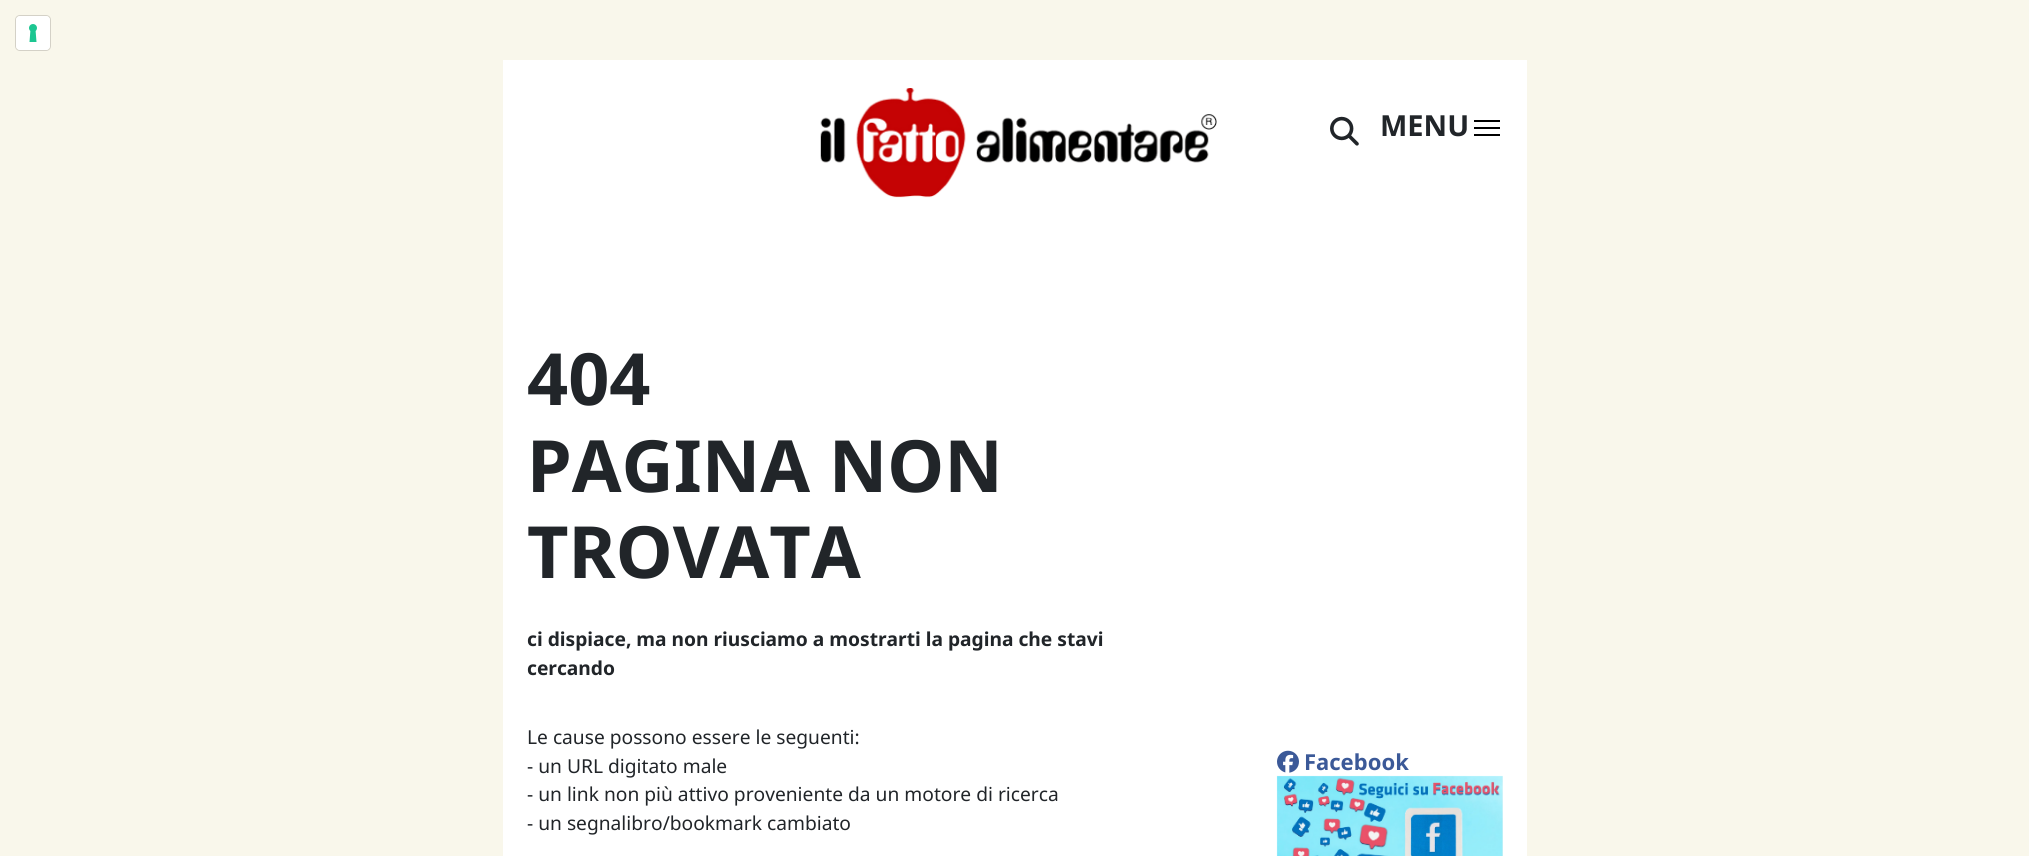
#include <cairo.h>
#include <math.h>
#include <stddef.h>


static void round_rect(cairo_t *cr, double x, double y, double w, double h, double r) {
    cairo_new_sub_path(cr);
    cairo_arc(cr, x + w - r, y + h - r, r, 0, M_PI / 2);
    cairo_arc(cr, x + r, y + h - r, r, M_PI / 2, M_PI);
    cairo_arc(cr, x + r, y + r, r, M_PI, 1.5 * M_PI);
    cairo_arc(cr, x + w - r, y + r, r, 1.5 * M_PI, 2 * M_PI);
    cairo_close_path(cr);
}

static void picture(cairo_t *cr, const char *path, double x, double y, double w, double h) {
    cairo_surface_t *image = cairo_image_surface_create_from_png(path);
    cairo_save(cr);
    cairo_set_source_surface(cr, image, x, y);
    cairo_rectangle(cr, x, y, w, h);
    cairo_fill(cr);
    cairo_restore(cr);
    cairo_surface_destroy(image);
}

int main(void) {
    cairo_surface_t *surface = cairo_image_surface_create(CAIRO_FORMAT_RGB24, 2029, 856);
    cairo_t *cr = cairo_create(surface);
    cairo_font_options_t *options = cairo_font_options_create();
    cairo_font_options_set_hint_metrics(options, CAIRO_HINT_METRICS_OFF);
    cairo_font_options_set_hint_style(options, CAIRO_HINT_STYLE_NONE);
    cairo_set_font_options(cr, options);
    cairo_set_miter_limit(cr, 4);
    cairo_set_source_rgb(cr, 0.976, 0.965, 0.918);
    cairo_paint(cr);
    round_rect(cr, 15.5, 15.5, 35, 35, 4.5);
    cairo_set_source_rgb(cr, 0.831, 0.82, 0.78);
    cairo_set_line_width(cr, 1);
    cairo_stroke(cr);
    cairo_set_source_rgb(cr, 1, 1, 1);
    round_rect(cr, 16, 16, 34, 34, 4);
    cairo_fill(cr);
    picture(cr, "img1.png", 29, 24, 8, 18);
    cairo_rectangle(cr, 503, 60, 1024, 796);
    cairo_fill(cr);
    picture(cr, "img2.png", 820, 88, 397, 110);
    picture(cr, "img3.png", 1330, 116, 29, 30);
    cairo_select_font_face(cr, "Noto Sans", CAIRO_FONT_SLANT_NORMAL, CAIRO_FONT_WEIGHT_BOLD);
    cairo_set_font_size(cr, 29);
    cairo_set_source_rgb(cr, 0.129, 0.145, 0.161);
    cairo_move_to(cr, 1380, 136);
    cairo_show_text(cr, "MENU");
    cairo_set_source_rgb(cr, 0, 0, 0);
    cairo_rectangle(cr, 1474, 120, 26, 2);
    cairo_fill(cr);
    cairo_rectangle(cr, 1474, 127, 26, 2);
    cairo_fill(cr);
    cairo_rectangle(cr, 1474, 134, 26, 2);
    cairo_fill(cr);
    cairo_set_font_size(cr, 72);
    cairo_set_source_rgb(cr, 0.129, 0.145, 0.161);
    cairo_move_to(cr, 527, 405);
    cairo_show_text(cr, "404");
    cairo_move_to(cr, 527, 492);
    cairo_show_text(cr, "PAGINA NON");
    cairo_move_to(cr, 527, 578);
    cairo_show_text(cr, "TROVATA");
    cairo_set_font_size(cr, 19.2);
    cairo_move_to(cr, 527, 646);
    cairo_show_text(cr, "ci dispiace, ma non riusciamo a mostrarti la pagina che stavi");
    cairo_move_to(cr, 527, 675);
    cairo_show_text(cr, "cercando");
    cairo_select_font_face(cr, "Noto Sans", CAIRO_FONT_SLANT_NORMAL, CAIRO_FONT_WEIGHT_NORMAL);
    cairo_move_to(cr, 527, 744);
    cairo_show_text(cr, "Le cause possono essere le seguenti:");
    cairo_move_to(cr, 527, 773);
    cairo_show_text(cr, "- un URL digitato male");
    cairo_move_to(cr, 527, 801);
    cairo_show_text(cr, "- un link non più attivo proveniente da un motore di ricerca");
    cairo_move_to(cr, 527, 830);
    cairo_show_text(cr, "- un segnalibro/bookmark cambiato");
    picture(cr, "img4.png", 1277, 750, 22, 23);
    cairo_select_font_face(cr, "Noto Sans", CAIRO_FONT_SLANT_NORMAL, CAIRO_FONT_WEIGHT_BOLD);
    cairo_set_font_size(cr, 22);
    cairo_set_source_rgb(cr, 0.231, 0.349, 0.596);
    cairo_move_to(cr, 1304, 770);
    cairo_show_text(cr, "Facebook");
    picture(cr, "img5.png", 1276, 775, 227, 81);
    cairo_surface_write_to_png(surface, "page.png");
    cairo_font_options_destroy(options);
    cairo_destroy(cr);
    cairo_surface_destroy(surface);
    return 0;
}
